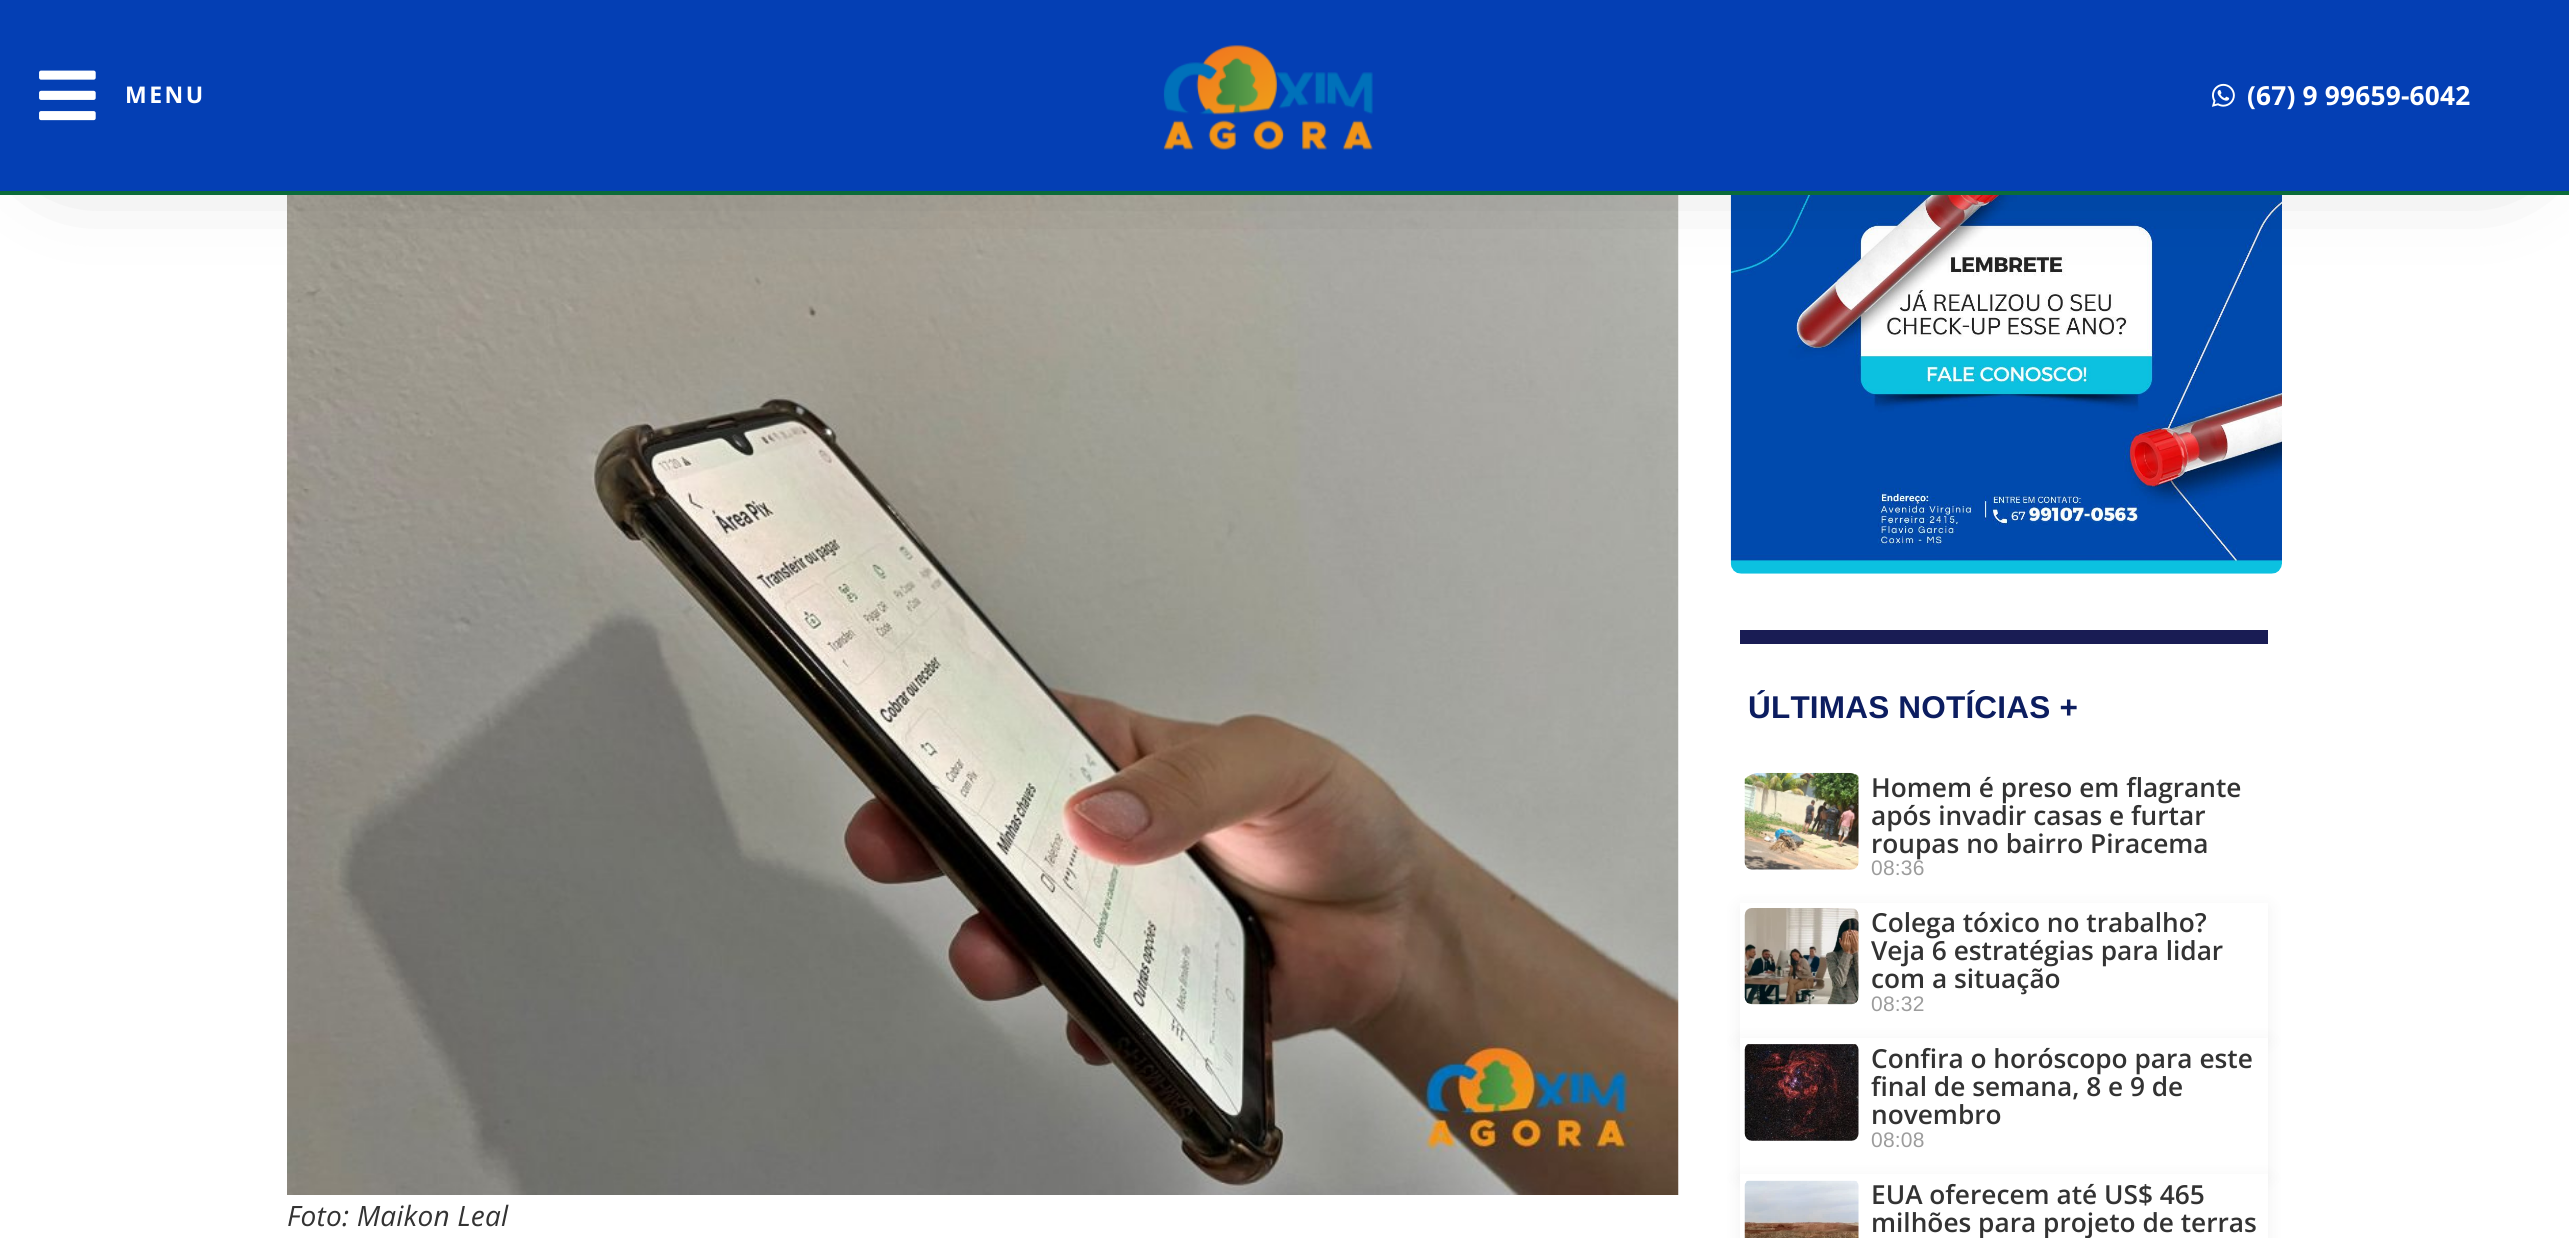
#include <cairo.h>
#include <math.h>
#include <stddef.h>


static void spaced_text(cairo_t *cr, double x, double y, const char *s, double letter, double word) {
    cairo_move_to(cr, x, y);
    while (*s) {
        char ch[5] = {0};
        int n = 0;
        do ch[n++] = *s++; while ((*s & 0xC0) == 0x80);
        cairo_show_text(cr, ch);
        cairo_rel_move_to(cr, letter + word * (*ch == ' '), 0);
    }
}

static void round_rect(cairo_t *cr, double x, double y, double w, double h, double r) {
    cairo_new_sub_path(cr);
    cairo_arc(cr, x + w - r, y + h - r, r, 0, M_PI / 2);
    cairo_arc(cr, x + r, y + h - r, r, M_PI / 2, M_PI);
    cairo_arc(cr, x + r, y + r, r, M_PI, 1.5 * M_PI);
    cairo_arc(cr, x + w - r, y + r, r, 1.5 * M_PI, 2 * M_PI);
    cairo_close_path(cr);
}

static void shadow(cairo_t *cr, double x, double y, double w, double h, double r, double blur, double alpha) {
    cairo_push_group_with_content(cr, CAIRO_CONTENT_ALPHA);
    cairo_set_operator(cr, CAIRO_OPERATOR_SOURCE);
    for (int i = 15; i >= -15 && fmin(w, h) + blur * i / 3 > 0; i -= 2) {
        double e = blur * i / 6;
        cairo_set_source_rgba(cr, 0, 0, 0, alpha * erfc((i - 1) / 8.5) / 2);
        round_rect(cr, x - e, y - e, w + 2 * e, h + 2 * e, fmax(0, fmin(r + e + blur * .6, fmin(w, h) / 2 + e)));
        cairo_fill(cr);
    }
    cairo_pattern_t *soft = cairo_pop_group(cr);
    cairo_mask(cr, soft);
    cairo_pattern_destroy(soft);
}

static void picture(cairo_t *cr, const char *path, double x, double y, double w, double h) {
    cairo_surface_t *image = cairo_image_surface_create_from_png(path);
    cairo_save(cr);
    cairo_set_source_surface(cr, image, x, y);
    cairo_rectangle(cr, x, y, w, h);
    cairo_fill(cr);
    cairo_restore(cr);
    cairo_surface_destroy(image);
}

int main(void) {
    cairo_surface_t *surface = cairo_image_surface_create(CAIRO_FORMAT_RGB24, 2569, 1238);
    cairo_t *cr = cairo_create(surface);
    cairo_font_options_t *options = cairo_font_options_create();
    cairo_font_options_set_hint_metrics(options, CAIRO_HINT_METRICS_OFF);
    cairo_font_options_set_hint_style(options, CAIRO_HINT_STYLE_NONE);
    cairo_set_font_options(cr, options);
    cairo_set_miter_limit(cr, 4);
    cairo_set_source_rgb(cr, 1, 1, 1);
    cairo_paint(cr);
    picture(cr, "img4.png", 287, 195, 1392, 1000);
    picture(cr, "img5.png", 1730, 195, 552, 379);
    cairo_set_source_rgb(cr, 0, 0, 0);
    shadow(cr, 70, 75, 2429, 55, 0, 54, 0.5);
    cairo_set_source_rgb(cr, 0.016, 0.247, 0.706);
    cairo_rectangle(cr, 0, 0, 2569, 191);
    cairo_fill(cr);
    cairo_set_source_rgb(cr, 0.043, 0.42, 0.227);
    cairo_rectangle(cr, 0, 191, 2569, 4);
    cairo_fill(cr);
    picture(cr, "img1.png", 39, 70, 57, 51);
    cairo_select_font_face(cr, "Open Sans", CAIRO_FONT_SLANT_NORMAL, CAIRO_FONT_WEIGHT_BOLD);
    cairo_set_font_size(cr, 23);
    cairo_set_source_rgb(cr, 1, 1, 1);
    spaced_text(cr, 125, 103, "MENU", 2.5, 0);
    picture(cr, "img2.png", 1163, 45, 210, 105);
    picture(cr, "img3.png", 2211, 83, 24, 24);
    cairo_set_font_size(cr, 26.25);
    spaced_text(cr, 2247, 105, "(67) 9 99659-6042", 0.2, 0);
    cairo_select_font_face(cr, "Open Sans", CAIRO_FONT_SLANT_ITALIC, CAIRO_FONT_WEIGHT_NORMAL);
    cairo_set_font_size(cr, 28);
    cairo_set_source_rgb(cr, 0.2, 0.2, 0.2);
    spaced_text(cr, 287, 1226, "Foto: Maikon Leal", 0.2, 0);
    cairo_set_source_rgb(cr, 0.098, 0.11, 0.329);
    cairo_rectangle(cr, 1740, 630, 528, 14);
    cairo_fill(cr);
    cairo_select_font_face(cr, "Liberation Sans", CAIRO_FONT_SLANT_NORMAL, CAIRO_FONT_WEIGHT_BOLD);
    cairo_set_font_size(cr, 31.5);
    cairo_set_source_rgb(cr, 0.047, 0.114, 0.376);
    spaced_text(cr, 1748, 718, "ÚLTIMAS NOTÍCIAS +", 0.2, 0);
    picture(cr, "img6.png", 1744, 772, 115, 98);
    cairo_select_font_face(cr, "Open Sans SemiBold", CAIRO_FONT_SLANT_NORMAL, CAIRO_FONT_WEIGHT_NORMAL);
    cairo_set_font_size(cr, 26.25);
    cairo_set_source_rgb(cr, 0.2, 0.2, 0.2);
    cairo_move_to(cr, 1871, 797);
    cairo_show_text(cr, "Homem é preso em flagrante");
    cairo_move_to(cr, 1871, 825);
    cairo_show_text(cr, "após invadir casas e furtar");
    cairo_move_to(cr, 1871, 853);
    cairo_show_text(cr, "roupas no bairro Piracema");
    cairo_select_font_face(cr, "Liberation Sans", CAIRO_FONT_SLANT_NORMAL, CAIRO_FONT_WEIGHT_NORMAL);
    cairo_set_font_size(cr, 21);
    cairo_set_source_rgb(cr, 0.612, 0.612, 0.612);
    spaced_text(cr, 1871, 875, "08:36", 0.2, 0);
    cairo_set_source_rgb(cr, 0, 0, 0);
    shadow(cr, 1740, 907, 528, 134, 0, 9, 0.06);
    cairo_set_source_rgb(cr, 1, 1, 1);
    cairo_rectangle(cr, 1740, 903, 528, 135);
    cairo_fill(cr);
    picture(cr, "img7.png", 1744, 908, 115, 97);
    cairo_select_font_face(cr, "Open Sans SemiBold", CAIRO_FONT_SLANT_NORMAL, CAIRO_FONT_WEIGHT_NORMAL);
    cairo_set_font_size(cr, 26.25);
    cairo_set_source_rgb(cr, 0.2, 0.2, 0.2);
    cairo_move_to(cr, 1871, 932);
    cairo_show_text(cr, "Colega tóxico no trabalho?");
    cairo_move_to(cr, 1871, 960);
    cairo_show_text(cr, "Veja 6 estratégias para lidar");
    cairo_move_to(cr, 1871, 988);
    cairo_show_text(cr, "com a situação");
    cairo_select_font_face(cr, "Liberation Sans", CAIRO_FONT_SLANT_NORMAL, CAIRO_FONT_WEIGHT_NORMAL);
    cairo_set_font_size(cr, 21);
    cairo_set_source_rgb(cr, 0.612, 0.612, 0.612);
    spaced_text(cr, 1871, 1011, "08:32", 0.2, 0);
    cairo_set_source_rgb(cr, 0, 0, 0);
    shadow(cr, 1740, 1041, 528, 137, 0, 9, 0.06);
    cairo_set_source_rgb(cr, 1, 1, 1);
    cairo_rectangle(cr, 1740, 1038, 528, 136);
    cairo_fill(cr);
    picture(cr, "img8.png", 1744, 1044, 115, 97);
    cairo_select_font_face(cr, "Open Sans SemiBold", CAIRO_FONT_SLANT_NORMAL, CAIRO_FONT_WEIGHT_NORMAL);
    cairo_set_font_size(cr, 26.25);
    cairo_set_source_rgb(cr, 0.2, 0.2, 0.2);
    cairo_move_to(cr, 1871, 1068);
    cairo_show_text(cr, "Confira o horóscopo para este");
    cairo_move_to(cr, 1871, 1096);
    cairo_show_text(cr, "final de semana, 8 e 9 de");
    cairo_move_to(cr, 1871, 1124);
    cairo_show_text(cr, "novembro");
    cairo_select_font_face(cr, "Liberation Sans", CAIRO_FONT_SLANT_NORMAL, CAIRO_FONT_WEIGHT_NORMAL);
    cairo_set_font_size(cr, 21);
    cairo_set_source_rgb(cr, 0.612, 0.612, 0.612);
    spaced_text(cr, 1871, 1147, "08:08", 0.2, 0);
    cairo_set_source_rgb(cr, 0, 0, 0);
    shadow(cr, 1740, 1178, 528, 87, 0, 9, 0.06);
    cairo_set_source_rgb(cr, 1, 1, 1);
    cairo_rectangle(cr, 1740, 1174, 528, 64);
    cairo_fill(cr);
    picture(cr, "img9.png", 1744, 1180, 115, 58);
    cairo_select_font_face(cr, "Open Sans SemiBold", CAIRO_FONT_SLANT_NORMAL, CAIRO_FONT_WEIGHT_NORMAL);
    cairo_set_font_size(cr, 26.25);
    cairo_set_source_rgb(cr, 0.2, 0.2, 0.2);
    cairo_move_to(cr, 1871, 1204);
    cairo_show_text(cr, "EUA oferecem até US$ 465");
    cairo_move_to(cr, 1871, 1232);
    cairo_show_text(cr, "milhões para projeto de terras");
    cairo_surface_write_to_png(surface, "page.png");
    cairo_font_options_destroy(options);
    cairo_destroy(cr);
    cairo_surface_destroy(surface);
    return 0;
}
